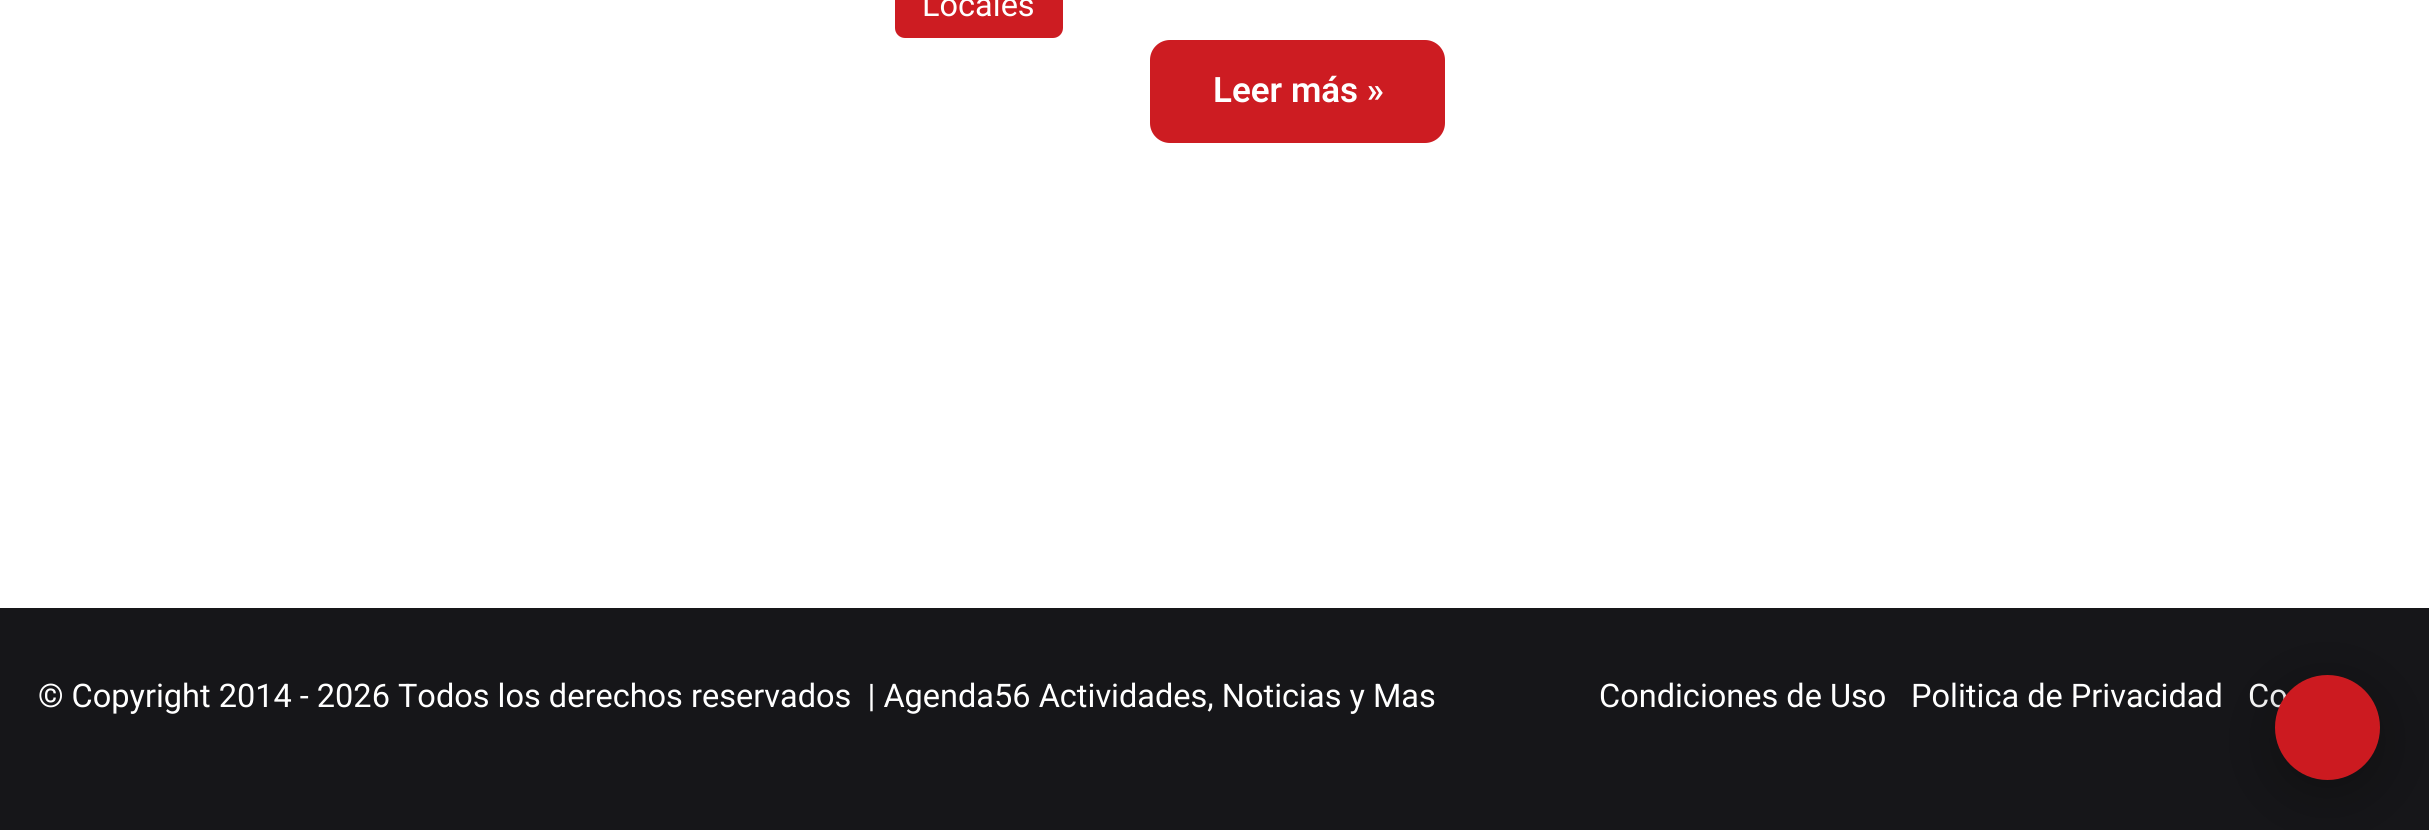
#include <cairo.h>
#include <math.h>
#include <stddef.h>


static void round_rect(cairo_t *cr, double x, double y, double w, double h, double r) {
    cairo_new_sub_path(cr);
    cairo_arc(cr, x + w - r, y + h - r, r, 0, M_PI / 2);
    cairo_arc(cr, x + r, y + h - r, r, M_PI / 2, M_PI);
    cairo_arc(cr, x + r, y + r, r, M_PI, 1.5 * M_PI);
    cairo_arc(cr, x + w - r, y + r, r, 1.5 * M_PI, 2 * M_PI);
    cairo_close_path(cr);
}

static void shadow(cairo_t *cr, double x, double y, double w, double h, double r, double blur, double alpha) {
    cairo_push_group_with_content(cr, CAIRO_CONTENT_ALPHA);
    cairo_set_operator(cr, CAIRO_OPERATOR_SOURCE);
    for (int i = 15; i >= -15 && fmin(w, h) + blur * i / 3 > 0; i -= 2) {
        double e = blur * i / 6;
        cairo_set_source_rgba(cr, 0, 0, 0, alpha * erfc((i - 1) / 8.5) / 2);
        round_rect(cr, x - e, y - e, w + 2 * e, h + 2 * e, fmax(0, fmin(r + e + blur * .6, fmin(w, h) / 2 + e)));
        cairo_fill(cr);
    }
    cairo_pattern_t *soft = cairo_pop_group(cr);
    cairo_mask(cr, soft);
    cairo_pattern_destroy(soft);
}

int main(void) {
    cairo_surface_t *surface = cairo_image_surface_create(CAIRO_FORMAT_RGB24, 2429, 830);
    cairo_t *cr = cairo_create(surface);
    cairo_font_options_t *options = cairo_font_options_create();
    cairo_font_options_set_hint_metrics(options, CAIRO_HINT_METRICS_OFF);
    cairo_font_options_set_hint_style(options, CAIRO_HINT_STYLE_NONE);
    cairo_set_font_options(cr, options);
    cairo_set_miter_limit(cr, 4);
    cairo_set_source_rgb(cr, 1, 1, 1);
    cairo_paint(cr);
    cairo_set_source_rgb(cr, 0.804, 0.11, 0.133);
    round_rect(cr, 895, -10, 168, 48, 10);
    cairo_fill(cr);
    cairo_select_font_face(cr, "Roboto", CAIRO_FONT_SLANT_NORMAL, CAIRO_FONT_WEIGHT_NORMAL);
    cairo_set_font_size(cr, 32.5);
    cairo_set_source_rgb(cr, 1, 1, 1);
    cairo_move_to(cr, 922, 16);
    cairo_show_text(cr, "Locales");
    cairo_set_source_rgb(cr, 0.804, 0.11, 0.133);
    round_rect(cr, 1150, 40, 295, 103, 20);
    cairo_fill(cr);
    cairo_select_font_face(cr, "Roboto SemiBold", CAIRO_FONT_SLANT_NORMAL, CAIRO_FONT_WEIGHT_NORMAL);
    cairo_set_font_size(cr, 35);
    cairo_set_source_rgb(cr, 1, 1, 1);
    cairo_move_to(cr, 1213, 102);
    cairo_show_text(cr, "Leer más »");
    cairo_set_source_rgb(cr, 0.086, 0.086, 0.098);
    cairo_rectangle(cr, 0, 608, 2429, 222);
    cairo_fill(cr);
    cairo_select_font_face(cr, "Roboto", CAIRO_FONT_SLANT_NORMAL, CAIRO_FONT_WEIGHT_NORMAL);
    cairo_set_font_size(cr, 32.5);
    cairo_set_source_rgb(cr, 1, 1, 1);
    cairo_move_to(cr, 38, 707);
    cairo_show_text(cr, "© Copyright 2014 - 2026 Todos los derechos reservados  | Agenda56 Actividades, Noticias y Mas");
    cairo_move_to(cr, 1599, 707);
    cairo_show_text(cr, "Condiciones de Uso");
    cairo_move_to(cr, 1911, 707);
    cairo_show_text(cr, "Politica de Privacidad");
    cairo_move_to(cr, 2248, 707);
    cairo_show_text(cr, "Co");
    cairo_set_source_rgb(cr, 0, 0, 0);
    shadow(cr, 2275, 688, 105, 105, 52.5, 31, 0.3);
    cairo_set_source_rgb(cr, 0.8, 0.102, 0.125);
    cairo_arc(cr, 2327.5, 727.5, 52.5, 0, 2 * M_PI);
    cairo_fill(cr);
    cairo_surface_write_to_png(surface, "page.png");
    cairo_font_options_destroy(options);
    cairo_destroy(cr);
    cairo_surface_destroy(surface);
    return 0;
}
